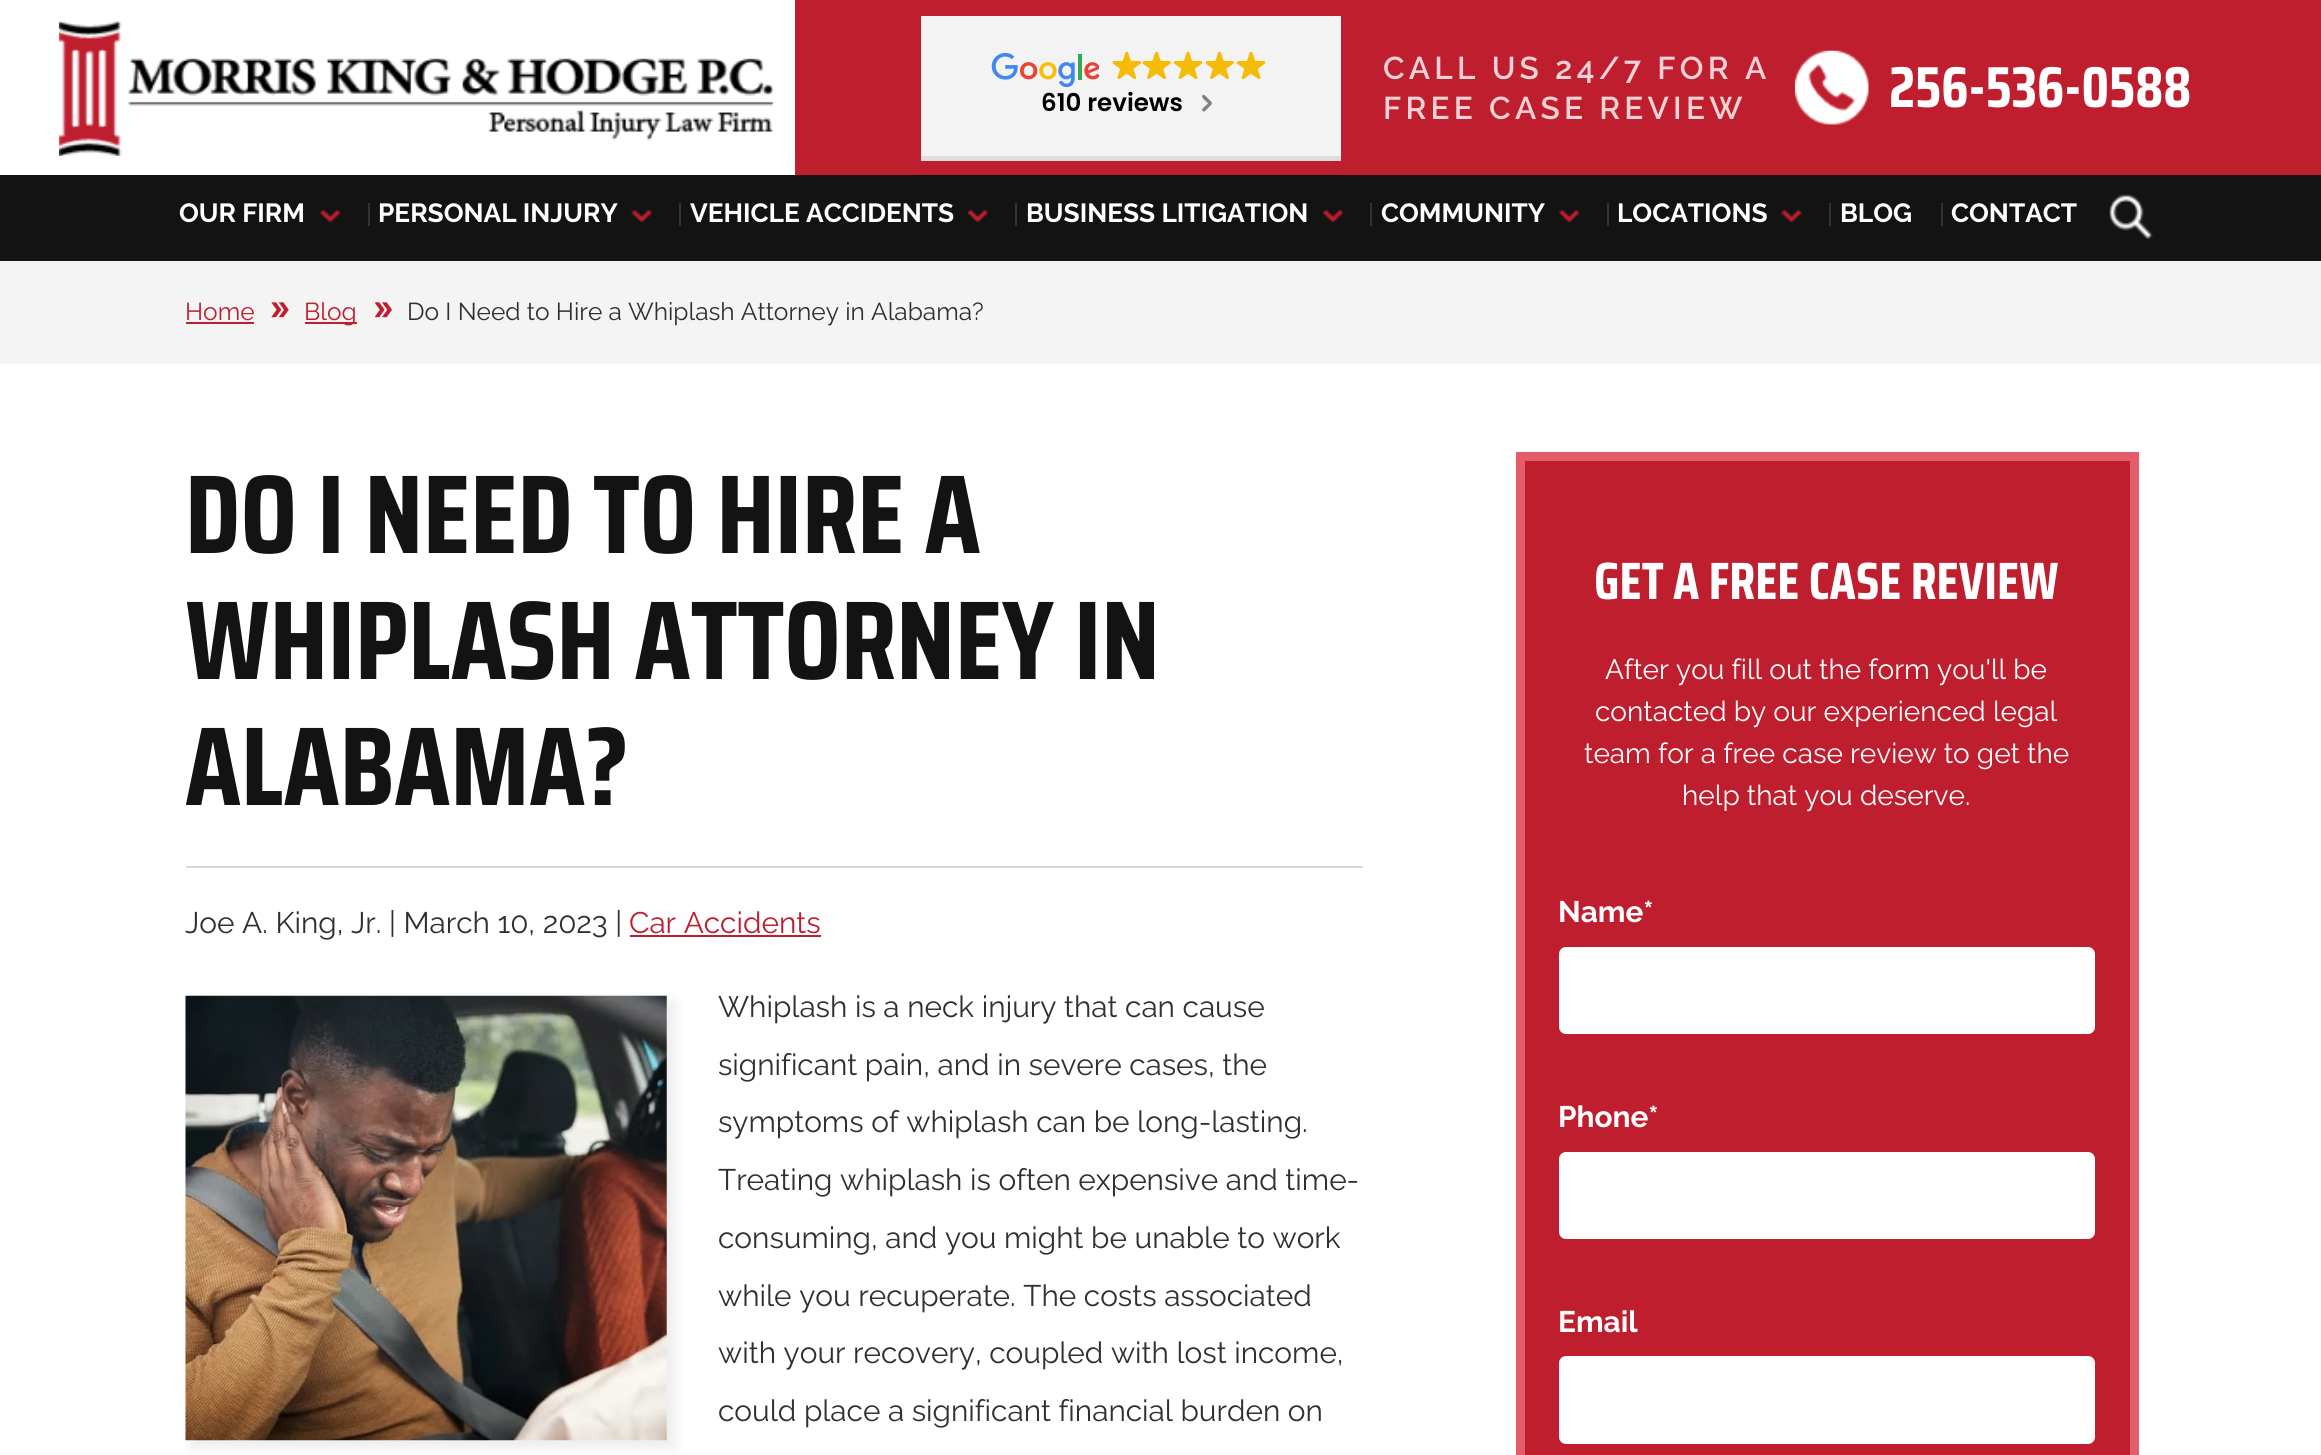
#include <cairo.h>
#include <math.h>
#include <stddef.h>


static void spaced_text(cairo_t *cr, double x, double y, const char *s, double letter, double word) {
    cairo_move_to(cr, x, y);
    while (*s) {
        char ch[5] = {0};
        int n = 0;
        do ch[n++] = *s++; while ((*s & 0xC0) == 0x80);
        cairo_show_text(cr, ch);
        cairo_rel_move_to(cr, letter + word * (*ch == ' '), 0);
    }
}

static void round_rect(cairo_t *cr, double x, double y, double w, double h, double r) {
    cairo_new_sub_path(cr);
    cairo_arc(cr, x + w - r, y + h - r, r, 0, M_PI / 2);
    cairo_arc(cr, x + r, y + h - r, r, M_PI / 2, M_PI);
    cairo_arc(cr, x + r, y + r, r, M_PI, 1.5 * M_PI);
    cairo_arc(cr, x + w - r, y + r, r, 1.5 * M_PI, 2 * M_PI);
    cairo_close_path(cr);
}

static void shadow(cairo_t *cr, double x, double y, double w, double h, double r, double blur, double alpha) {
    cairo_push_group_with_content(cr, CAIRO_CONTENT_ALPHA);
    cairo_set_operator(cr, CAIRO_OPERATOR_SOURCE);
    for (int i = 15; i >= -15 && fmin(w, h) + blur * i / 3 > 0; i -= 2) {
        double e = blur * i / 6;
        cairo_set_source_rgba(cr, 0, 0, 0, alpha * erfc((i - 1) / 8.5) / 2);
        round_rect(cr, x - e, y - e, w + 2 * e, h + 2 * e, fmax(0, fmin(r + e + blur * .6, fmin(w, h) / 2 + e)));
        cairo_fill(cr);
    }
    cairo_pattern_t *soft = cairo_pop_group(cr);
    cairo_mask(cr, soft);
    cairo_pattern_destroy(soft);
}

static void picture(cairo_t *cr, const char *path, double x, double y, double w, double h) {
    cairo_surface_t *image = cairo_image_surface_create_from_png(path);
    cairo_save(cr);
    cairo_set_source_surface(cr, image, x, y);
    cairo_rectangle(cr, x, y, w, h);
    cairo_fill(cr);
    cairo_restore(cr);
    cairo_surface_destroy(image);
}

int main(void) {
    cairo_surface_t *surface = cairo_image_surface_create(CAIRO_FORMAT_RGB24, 2321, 1455);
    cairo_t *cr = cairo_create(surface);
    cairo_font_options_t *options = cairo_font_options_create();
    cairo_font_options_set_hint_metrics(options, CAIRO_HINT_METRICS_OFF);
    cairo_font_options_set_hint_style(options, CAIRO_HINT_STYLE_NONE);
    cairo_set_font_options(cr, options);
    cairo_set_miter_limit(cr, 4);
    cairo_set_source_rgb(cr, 1, 1, 1);
    cairo_paint(cr);
    cairo_set_source_rgb(cr, 0.749, 0.118, 0.18);
    cairo_rectangle(cr, 795, 0, 1526, 175);
    cairo_fill(cr);
    picture(cr, "img1.png", 58, 21, 715, 135);
    cairo_set_source_rgb(cr, 0.953, 0.953, 0.953);
    cairo_rectangle(cr, 921, 16, 420, 140);
    cairo_fill(cr);
    cairo_set_source_rgb(cr, 0.867, 0.867, 0.867);
    cairo_rectangle(cr, 921, 156, 420, 5);
    cairo_fill(cr);
    picture(cr, "img2.png", 991, 53, 108, 35);
    picture(cr, "img3.png", 1112, 51, 29, 28);
    picture(cr, "img4.png", 1143, 51, 28, 28);
    picture(cr, "img5.png", 1174, 51, 29, 28);
    picture(cr, "img4.png", 1206, 51, 28, 28);
    picture(cr, "img6.png", 1236, 51, 29, 28);
    cairo_select_font_face(cr, "Poppins SemiBold", CAIRO_FONT_SLANT_NORMAL, CAIRO_FONT_WEIGHT_NORMAL);
    cairo_set_font_size(cr, 24.5);
    cairo_set_source_rgb(cr, 0, 0, 0);
    cairo_move_to(cr, 1041, 111);
    cairo_show_text(cr, "610 reviews");
    cairo_set_source_rgb(cr, 0.502, 0.502, 0.502);
    cairo_new_path(cr);
    cairo_move_to(cr, 1202.5, 108.5);
    cairo_line_to(cr, 1207, 104.5);
    cairo_curve_to(cr, 1208, 103.5, 1210, 100.5, 1211.5, 102.5);
    cairo_line_to(cr, 1211.5, 104.5);
    cairo_line_to(cr, 1204.5, 111.5);
    cairo_curve_to(cr, 1203, 112, 1201.5, 110, 1202.5, 108.5);
    cairo_close_path(cr);
    cairo_fill(cr);
    cairo_new_path(cr);
    cairo_move_to(cr, 1209, 104);
    cairo_line_to(cr, 1204.5, 100);
    cairo_curve_to(cr, 1203.5, 99, 1200.5, 96.5, 1203, 95);
    cairo_line_to(cr, 1204.5, 95);
    cairo_line_to(cr, 1211.5, 102);
    cairo_curve_to(cr, 1212.5, 104, 1210, 105.5, 1209, 104);
    cairo_close_path(cr);
    cairo_fill(cr);
    cairo_select_font_face(cr, "Raleway SemiBold", CAIRO_FONT_SLANT_NORMAL, CAIRO_FONT_WEIGHT_NORMAL);
    cairo_set_font_size(cr, 31.5);
    cairo_set_source_rgb(cr, 0.949, 0.824, 0.835);
    spaced_text(cr, 1383, 79, "CALL US 24/7 FOR A", 4.25, 0);
    spaced_text(cr, 1383, 119, "FREE CASE REVIEW", 4.25, 0);
    picture(cr, "img7.png", 1794, 50, 75, 75);
    cairo_select_font_face(cr, "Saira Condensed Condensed", CAIRO_FONT_SLANT_NORMAL, CAIRO_FONT_WEIGHT_BOLD);
    cairo_set_font_size(cr, 57.75);
    cairo_set_source_rgb(cr, 1, 1, 1);
    cairo_move_to(cr, 1889, 107);
    cairo_show_text(cr, "256-536-0588");
    cairo_set_source_rgb(cr, 0.075, 0.075, 0.075);
    cairo_rectangle(cr, 0, 175, 2321, 86);
    cairo_fill(cr);
    cairo_select_font_face(cr, "Raleway", CAIRO_FONT_SLANT_NORMAL, CAIRO_FONT_WEIGHT_BOLD);
    cairo_set_font_size(cr, 26.25);
    cairo_set_source_rgb(cr, 1, 1, 1);
    cairo_move_to(cr, 179, 222);
    cairo_show_text(cr, "OUR FIRM");
    picture(cr, "img8.png", 319, 210, 22, 13);
    cairo_set_source_rgb(cr, 0.2, 0.2, 0.2);
    cairo_rectangle(cr, 368, 203, 2, 23);
    cairo_fill(cr);
    cairo_set_source_rgb(cr, 1, 1, 1);
    cairo_move_to(cr, 378, 222);
    cairo_show_text(cr, "PERSONAL INJURY");
    picture(cr, "img9.png", 631, 210, 22, 13);
    cairo_set_source_rgb(cr, 0.2, 0.2, 0.2);
    cairo_rectangle(cr, 679, 203, 2, 23);
    cairo_fill(cr);
    cairo_set_source_rgb(cr, 1, 1, 1);
    cairo_move_to(cr, 690, 222);
    cairo_show_text(cr, "VEHICLE ACCIDENTS");
    picture(cr, "img10.png", 968, 210, 21, 13);
    cairo_set_source_rgb(cr, 0.2, 0.2, 0.2);
    cairo_rectangle(cr, 1015, 203, 2, 23);
    cairo_fill(cr);
    cairo_set_source_rgb(cr, 1, 1, 1);
    cairo_move_to(cr, 1026, 222);
    cairo_show_text(cr, "BUSINESS LITIGATION");
    picture(cr, "img11.png", 1322, 210, 22, 13);
    cairo_set_source_rgb(cr, 0.2, 0.2, 0.2);
    cairo_rectangle(cr, 1370, 203, 2, 23);
    cairo_fill(cr);
    cairo_set_source_rgb(cr, 1, 1, 1);
    cairo_move_to(cr, 1381, 222);
    cairo_show_text(cr, "COMMUNITY");
    picture(cr, "img12.png", 1558, 210, 22, 13);
    cairo_set_source_rgb(cr, 0.2, 0.2, 0.2);
    cairo_rectangle(cr, 1607, 203, 2, 23);
    cairo_fill(cr);
    cairo_set_source_rgb(cr, 1, 1, 1);
    cairo_move_to(cr, 1617, 222);
    cairo_show_text(cr, "LOCATIONS");
    picture(cr, "img13.png", 1780, 210, 23, 13);
    cairo_set_source_rgb(cr, 0.2, 0.2, 0.2);
    cairo_rectangle(cr, 1829, 203, 2, 23);
    cairo_fill(cr);
    cairo_set_source_rgb(cr, 1, 1, 1);
    cairo_move_to(cr, 1840, 222);
    cairo_show_text(cr, "BLOG");
    cairo_set_source_rgb(cr, 0.2, 0.2, 0.2);
    cairo_rectangle(cr, 1941, 203, 2, 23);
    cairo_fill(cr);
    cairo_set_source_rgb(cr, 1, 1, 1);
    cairo_move_to(cr, 1951, 222);
    cairo_show_text(cr, "CONTACT");
    picture(cr, "img14.png", 2109, 194, 44, 45);
    cairo_set_source_rgb(cr, 0.957, 0.957, 0.957);
    cairo_rectangle(cr, 0, 261, 2321, 103);
    cairo_fill(cr);
    cairo_select_font_face(cr, "Raleway", CAIRO_FONT_SLANT_NORMAL, CAIRO_FONT_WEIGHT_NORMAL);
    cairo_set_font_size(cr, 24.5);
    cairo_set_source_rgb(cr, 0.749, 0.118, 0.18);
    cairo_move_to(cr, 185, 320);
    cairo_show_text(cr, "Home");
    cairo_rectangle(cr, 186, 322, 68, 2);
    cairo_fill(cr);
    picture(cr, "img15.png", 271, 302, 18, 16);
    cairo_rectangle(cr, 305, 322, 52, 2);
    cairo_fill(cr);
    cairo_move_to(cr, 304, 320);
    cairo_show_text(cr, "Blog");
    picture(cr, "img16.png", 375, 302, 17, 16);
    cairo_set_source_rgb(cr, 0.188, 0.188, 0.188);
    cairo_move_to(cr, 407, 320);
    cairo_show_text(cr, "Do I Need to Hire a Whiplash Attorney in Alabama?");
    cairo_select_font_face(cr, "Saira Condensed Condensed", CAIRO_FONT_SLANT_NORMAL, CAIRO_FONT_WEIGHT_BOLD);
    cairo_set_font_size(cr, 112);
    cairo_set_source_rgb(cr, 0.075, 0.075, 0.075);
    cairo_move_to(cr, 185, 553);
    cairo_show_text(cr, "DO I NEED TO HIRE A");
    cairo_move_to(cr, 185, 679);
    cairo_show_text(cr, "WHIPLASH ATTORNEY IN");
    cairo_move_to(cr, 185, 805);
    cairo_show_text(cr, "ALABAMA?");
    cairo_set_source_rgb(cr, 0.847, 0.851, 0.851);
    cairo_rectangle(cr, 186, 866, 1177, 2);
    cairo_fill(cr);
    cairo_select_font_face(cr, "Raleway", CAIRO_FONT_SLANT_NORMAL, CAIRO_FONT_WEIGHT_NORMAL);
    cairo_set_font_size(cr, 29.75);
    cairo_set_source_rgb(cr, 0.188, 0.188, 0.188);
    cairo_move_to(cr, 185, 933);
    cairo_show_text(cr, "Joe A. King, Jr. | March 10, 2023 |");
    cairo_set_source_rgb(cr, 0.749, 0.118, 0.18);
    cairo_move_to(cr, 629, 933);
    cairo_show_text(cr, "Car Accidents");
    cairo_rectangle(cr, 630, 935, 191, 2);
    cairo_fill(cr);
    cairo_set_source_rgb(cr, 0, 0, 0);
    shadow(cr, 191, 1001, 485, 448, 0, 6, 0.07);
    picture(cr, "img17.png", 185, 995, 482, 446);
    cairo_set_source_rgb(cr, 0.188, 0.188, 0.188);
    cairo_move_to(cr, 718, 1017);
    cairo_show_text(cr, "Whiplash is a neck injury that can cause");
    cairo_move_to(cr, 718, 1075);
    cairo_show_text(cr, "significant pain, and in severe cases, the");
    cairo_move_to(cr, 718, 1132);
    cairo_show_text(cr, "symptoms of whiplash can be long-lasting.");
    cairo_move_to(cr, 718, 1190);
    cairo_show_text(cr, "Treating whiplash is often expensive and time-");
    cairo_move_to(cr, 718, 1248);
    cairo_show_text(cr, "consuming, and you might be unable to work");
    cairo_move_to(cr, 718, 1306);
    cairo_show_text(cr, "while you recuperate. The costs associated");
    cairo_move_to(cr, 718, 1363);
    cairo_show_text(cr, "with your recovery, coupled with lost income,");
    cairo_move_to(cr, 718, 1421);
    cairo_show_text(cr, "could place a significant financial burden on");
    cairo_set_source_rgb(cr, 0.749, 0.118, 0.18);
    cairo_rectangle(cr, 1520.5, 456.5, 614, 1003);
    cairo_fill_preserve(cr);
    cairo_set_source_rgb(cr, 0.898, 0.361, 0.416);
    cairo_set_line_width(cr, 9);
    cairo_stroke(cr);
    cairo_select_font_face(cr, "Saira Condensed Condensed", CAIRO_FONT_SLANT_NORMAL, CAIRO_FONT_WEIGHT_BOLD);
    cairo_set_font_size(cr, 52.5);
    cairo_set_source_rgb(cr, 1, 1, 1);
    cairo_move_to(cr, 1594, 599);
    cairo_show_text(cr, "GET A FREE CASE REVIEW");
    cairo_select_font_face(cr, "Raleway", CAIRO_FONT_SLANT_NORMAL, CAIRO_FONT_WEIGHT_NORMAL);
    cairo_set_font_size(cr, 28);
    cairo_move_to(cr, 1605, 679);
    cairo_show_text(cr, "After you fill out the form you'll be");
    cairo_move_to(cr, 1595, 721);
    cairo_show_text(cr, "contacted by our experienced legal");
    cairo_move_to(cr, 1584, 763);
    cairo_show_text(cr, "team for a free case review to get the");
    cairo_move_to(cr, 1682, 805);
    cairo_show_text(cr, "help that you deserve.");
    cairo_select_font_face(cr, "Raleway", CAIRO_FONT_SLANT_NORMAL, CAIRO_FONT_WEIGHT_BOLD);
    cairo_set_font_size(cr, 29.75);
    cairo_move_to(cr, 1558, 922);
    cairo_show_text(cr, "Name*");
    round_rect(cr, 1559, 947, 536, 87, 7);
    cairo_fill(cr);
    cairo_move_to(cr, 1558, 1127);
    cairo_show_text(cr, "Phone*");
    round_rect(cr, 1559, 1152, 536, 87, 7);
    cairo_fill(cr);
    cairo_move_to(cr, 1558, 1332);
    cairo_show_text(cr, "Email");
    round_rect(cr, 1559, 1356, 536, 88, 7);
    cairo_fill(cr);
    cairo_surface_write_to_png(surface, "page.png");
    cairo_font_options_destroy(options);
    cairo_destroy(cr);
    cairo_surface_destroy(surface);
    return 0;
}
